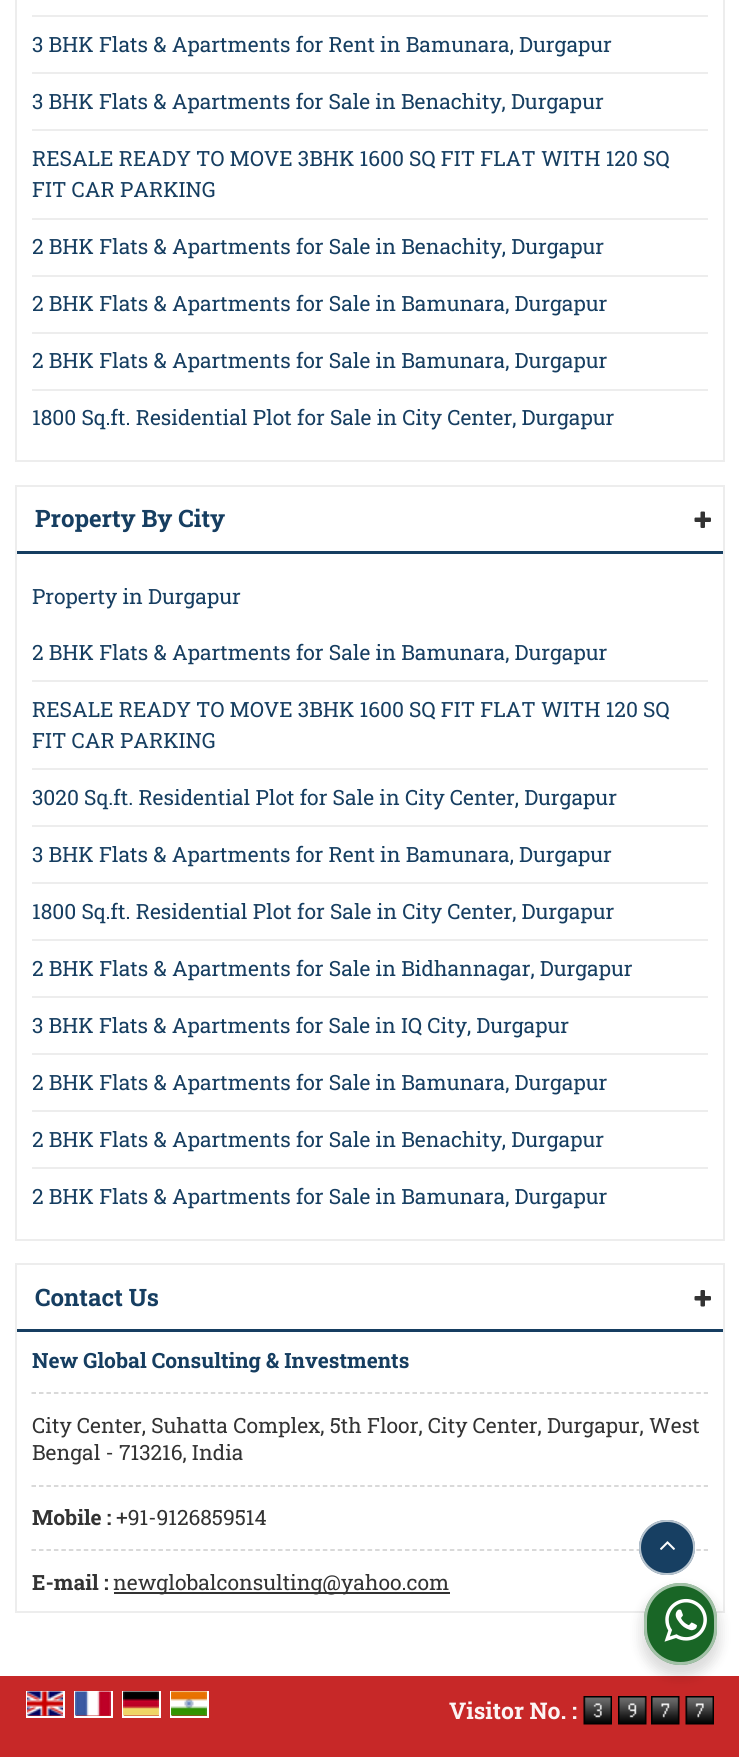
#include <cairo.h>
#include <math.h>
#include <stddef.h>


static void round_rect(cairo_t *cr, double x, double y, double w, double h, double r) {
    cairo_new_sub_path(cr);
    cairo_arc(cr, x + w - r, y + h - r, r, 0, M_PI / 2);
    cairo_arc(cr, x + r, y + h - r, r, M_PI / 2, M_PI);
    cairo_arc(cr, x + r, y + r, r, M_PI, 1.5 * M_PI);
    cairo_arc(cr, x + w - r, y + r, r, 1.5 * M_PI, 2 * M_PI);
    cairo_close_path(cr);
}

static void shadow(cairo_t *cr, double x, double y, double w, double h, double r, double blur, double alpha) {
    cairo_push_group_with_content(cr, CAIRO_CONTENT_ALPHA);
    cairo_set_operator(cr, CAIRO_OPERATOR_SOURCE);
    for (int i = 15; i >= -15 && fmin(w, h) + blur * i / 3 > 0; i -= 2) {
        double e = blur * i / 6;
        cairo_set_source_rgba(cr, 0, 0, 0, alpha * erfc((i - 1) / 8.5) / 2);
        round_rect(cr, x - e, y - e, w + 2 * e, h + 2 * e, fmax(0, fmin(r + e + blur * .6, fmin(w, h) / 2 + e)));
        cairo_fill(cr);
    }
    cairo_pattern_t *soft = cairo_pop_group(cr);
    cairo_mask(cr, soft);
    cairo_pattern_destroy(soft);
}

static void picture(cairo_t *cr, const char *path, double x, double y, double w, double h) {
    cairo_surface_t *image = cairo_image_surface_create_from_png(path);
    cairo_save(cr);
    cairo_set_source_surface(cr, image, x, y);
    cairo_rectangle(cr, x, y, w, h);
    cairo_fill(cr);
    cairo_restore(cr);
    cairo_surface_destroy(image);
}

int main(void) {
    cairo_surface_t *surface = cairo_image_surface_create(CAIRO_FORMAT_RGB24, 739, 1757);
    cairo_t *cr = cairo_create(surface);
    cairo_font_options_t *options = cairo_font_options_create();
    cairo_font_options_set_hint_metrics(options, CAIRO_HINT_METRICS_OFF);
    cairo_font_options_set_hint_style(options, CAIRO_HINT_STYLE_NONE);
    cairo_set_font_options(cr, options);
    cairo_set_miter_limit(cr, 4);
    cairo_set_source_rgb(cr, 1, 1, 1);
    cairo_paint(cr);
    cairo_rectangle(cr, 16, -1, 708, 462);
    cairo_set_source_rgb(cr, 0.929, 0.929, 0.929);
    cairo_stroke(cr);
    cairo_rectangle(cr, 32, 15, 676, 2);
    cairo_fill(cr);
    cairo_rectangle(cr, 32, 72, 676, 2);
    cairo_fill(cr);
    cairo_select_font_face(cr, "Roboto Slab", CAIRO_FONT_SLANT_NORMAL, CAIRO_FONT_WEIGHT_NORMAL);
    cairo_set_font_size(cr, 21);
    cairo_set_source_rgb(cr, 0.086, 0.243, 0.38);
    cairo_move_to(cr, 32, 52);
    cairo_show_text(cr, "3 BHK Flats & Apartments for Rent in Bamunara, Durgapur");
    cairo_set_source_rgb(cr, 0.929, 0.929, 0.929);
    cairo_rectangle(cr, 32, 129, 676, 2);
    cairo_fill(cr);
    cairo_set_source_rgb(cr, 0.086, 0.243, 0.38);
    cairo_move_to(cr, 32, 109);
    cairo_show_text(cr, "3 BHK Flats & Apartments for Sale in Benachity, Durgapur");
    cairo_set_source_rgb(cr, 0.929, 0.929, 0.929);
    cairo_rectangle(cr, 32, 218, 676, 2);
    cairo_fill(cr);
    cairo_set_source_rgb(cr, 0.086, 0.243, 0.38);
    cairo_move_to(cr, 32, 166);
    cairo_show_text(cr, "RESALE READY TO MOVE 3BHK 1600 SQ FIT FLAT WITH 120 SQ");
    cairo_move_to(cr, 32, 197);
    cairo_show_text(cr, "FIT CAR PARKING");
    cairo_set_source_rgb(cr, 0.929, 0.929, 0.929);
    cairo_rectangle(cr, 32, 275, 676, 2);
    cairo_fill(cr);
    cairo_set_source_rgb(cr, 0.086, 0.243, 0.38);
    cairo_move_to(cr, 32, 254);
    cairo_show_text(cr, "2 BHK Flats & Apartments for Sale in Benachity, Durgapur");
    cairo_set_source_rgb(cr, 0.929, 0.929, 0.929);
    cairo_rectangle(cr, 32, 332, 676, 2);
    cairo_fill(cr);
    cairo_set_source_rgb(cr, 0.086, 0.243, 0.38);
    cairo_move_to(cr, 32, 311);
    cairo_show_text(cr, "2 BHK Flats & Apartments for Sale in Bamunara, Durgapur");
    cairo_set_source_rgb(cr, 0.929, 0.929, 0.929);
    cairo_rectangle(cr, 32, 389, 676, 2);
    cairo_fill(cr);
    cairo_set_source_rgb(cr, 0.086, 0.243, 0.38);
    cairo_move_to(cr, 32, 368);
    cairo_show_text(cr, "2 BHK Flats & Apartments for Sale in Bamunara, Durgapur");
    cairo_move_to(cr, 32, 425);
    cairo_show_text(cr, "1800 Sq.ft. Residential Plot for Sale in City Center, Durgapur");
    cairo_rectangle(cr, 16, 486, 708, 754);
    cairo_set_source_rgb(cr, 0.929, 0.929, 0.929);
    cairo_stroke(cr);
    cairo_set_source_rgb(cr, 0.086, 0.243, 0.38);
    cairo_rectangle(cr, 17, 551, 706, 3);
    cairo_fill(cr);
    cairo_select_font_face(cr, "Roboto Slab", CAIRO_FONT_SLANT_NORMAL, CAIRO_FONT_WEIGHT_BOLD);
    cairo_set_font_size(cr, 24);
    cairo_move_to(cr, 35, 527);
    cairo_show_text(cr, "Property By City");
    picture(cr, "img1.png", 694, 511, 17, 17);
    cairo_select_font_face(cr, "Roboto Slab", CAIRO_FONT_SLANT_NORMAL, CAIRO_FONT_WEIGHT_NORMAL);
    cairo_set_font_size(cr, 21);
    cairo_move_to(cr, 32, 604);
    cairo_show_text(cr, "Property in Durgapur");
    cairo_set_source_rgb(cr, 0.929, 0.929, 0.929);
    cairo_rectangle(cr, 32, 680, 676, 2);
    cairo_fill(cr);
    cairo_set_source_rgb(cr, 0.086, 0.243, 0.38);
    cairo_move_to(cr, 32, 660);
    cairo_show_text(cr, "2 BHK Flats & Apartments for Sale in Bamunara, Durgapur");
    cairo_set_source_rgb(cr, 0.929, 0.929, 0.929);
    cairo_rectangle(cr, 32, 768, 676, 2);
    cairo_fill(cr);
    cairo_set_source_rgb(cr, 0.086, 0.243, 0.38);
    cairo_move_to(cr, 32, 717);
    cairo_show_text(cr, "RESALE READY TO MOVE 3BHK 1600 SQ FIT FLAT WITH 120 SQ");
    cairo_move_to(cr, 32, 748);
    cairo_show_text(cr, "FIT CAR PARKING");
    cairo_set_source_rgb(cr, 0.929, 0.929, 0.929);
    cairo_rectangle(cr, 32, 825, 676, 2);
    cairo_fill(cr);
    cairo_set_source_rgb(cr, 0.086, 0.243, 0.38);
    cairo_move_to(cr, 32, 805);
    cairo_show_text(cr, "3020 Sq.ft. Residential Plot for Sale in City Center, Durgapur");
    cairo_set_source_rgb(cr, 0.929, 0.929, 0.929);
    cairo_rectangle(cr, 32, 882, 676, 2);
    cairo_fill(cr);
    cairo_set_source_rgb(cr, 0.086, 0.243, 0.38);
    cairo_move_to(cr, 32, 862);
    cairo_show_text(cr, "3 BHK Flats & Apartments for Rent in Bamunara, Durgapur");
    cairo_set_source_rgb(cr, 0.929, 0.929, 0.929);
    cairo_rectangle(cr, 32, 939, 676, 2);
    cairo_fill(cr);
    cairo_set_source_rgb(cr, 0.086, 0.243, 0.38);
    cairo_move_to(cr, 32, 919);
    cairo_show_text(cr, "1800 Sq.ft. Residential Plot for Sale in City Center, Durgapur");
    cairo_set_source_rgb(cr, 0.929, 0.929, 0.929);
    cairo_rectangle(cr, 32, 996, 676, 2);
    cairo_fill(cr);
    cairo_set_source_rgb(cr, 0.086, 0.243, 0.38);
    cairo_move_to(cr, 32, 976);
    cairo_show_text(cr, "2 BHK Flats & Apartments for Sale in Bidhannagar, Durgapur");
    cairo_set_source_rgb(cr, 0.929, 0.929, 0.929);
    cairo_rectangle(cr, 32, 1053, 676, 2);
    cairo_fill(cr);
    cairo_set_source_rgb(cr, 0.086, 0.243, 0.38);
    cairo_move_to(cr, 32, 1033);
    cairo_show_text(cr, "3 BHK Flats & Apartments for Sale in IQ City, Durgapur");
    cairo_set_source_rgb(cr, 0.929, 0.929, 0.929);
    cairo_rectangle(cr, 32, 1110, 676, 2);
    cairo_fill(cr);
    cairo_set_source_rgb(cr, 0.086, 0.243, 0.38);
    cairo_move_to(cr, 32, 1090);
    cairo_show_text(cr, "2 BHK Flats & Apartments for Sale in Bamunara, Durgapur");
    cairo_set_source_rgb(cr, 0.929, 0.929, 0.929);
    cairo_rectangle(cr, 32, 1167, 676, 2);
    cairo_fill(cr);
    cairo_set_source_rgb(cr, 0.086, 0.243, 0.38);
    cairo_move_to(cr, 32, 1147);
    cairo_show_text(cr, "2 BHK Flats & Apartments for Sale in Benachity, Durgapur");
    cairo_move_to(cr, 32, 1204);
    cairo_show_text(cr, "2 BHK Flats & Apartments for Sale in Bamunara, Durgapur");
    cairo_rectangle(cr, 16, 1264, 708, 348);
    cairo_set_source_rgb(cr, 0.929, 0.929, 0.929);
    cairo_stroke(cr);
    cairo_set_source_rgb(cr, 0.086, 0.243, 0.38);
    cairo_rectangle(cr, 17, 1329, 706, 3);
    cairo_fill(cr);
    cairo_select_font_face(cr, "Roboto Slab", CAIRO_FONT_SLANT_NORMAL, CAIRO_FONT_WEIGHT_BOLD);
    cairo_set_font_size(cr, 24);
    cairo_move_to(cr, 35, 1306);
    cairo_show_text(cr, "Contact Us");
    picture(cr, "img2.png", 694, 1290, 17, 17);
    cairo_set_font_size(cr, 21);
    cairo_move_to(cr, 32, 1368);
    cairo_show_text(cr, "New Global Consulting & Investments");
    cairo_new_path(cr);
    cairo_move_to(cr, 31.5, 1393);
    cairo_line_to(cr, 708, 1393);
    cairo_set_source_rgb(cr, 0.8, 0.8, 0.8);
    cairo_set_line_width(cr, 1.5);
    cairo_set_dash(cr, (double[]){4.5, 2.97}, 2, 0);
    cairo_stroke(cr);
    cairo_select_font_face(cr, "Roboto Slab", CAIRO_FONT_SLANT_NORMAL, CAIRO_FONT_WEIGHT_NORMAL);
    cairo_set_source_rgb(cr, 0.2, 0.2, 0.2);
    cairo_move_to(cr, 32, 1433);
    cairo_show_text(cr, "City Center, Suhatta Complex, 5th Floor, City Center, Durgapur, West");
    cairo_move_to(cr, 32, 1460);
    cairo_show_text(cr, "Bengal - 713216, India");
    cairo_new_path(cr);
    cairo_move_to(cr, 31.5, 1486);
    cairo_line_to(cr, 708, 1486);
    cairo_set_source_rgb(cr, 0.8, 0.8, 0.8);
    cairo_stroke(cr);
    cairo_select_font_face(cr, "Roboto Slab", CAIRO_FONT_SLANT_NORMAL, CAIRO_FONT_WEIGHT_BOLD);
    cairo_set_source_rgb(cr, 0.2, 0.2, 0.2);
    cairo_move_to(cr, 32, 1525);
    cairo_show_text(cr, "Mobile :");
    cairo_select_font_face(cr, "Roboto Slab", CAIRO_FONT_SLANT_NORMAL, CAIRO_FONT_WEIGHT_NORMAL);
    cairo_move_to(cr, 116, 1525);
    cairo_show_text(cr, "+91-9126859514");
    cairo_new_path(cr);
    cairo_move_to(cr, 31.5, 1550);
    cairo_line_to(cr, 708, 1550);
    cairo_set_source_rgb(cr, 0.8, 0.8, 0.8);
    cairo_stroke(cr);
    cairo_select_font_face(cr, "Roboto Slab", CAIRO_FONT_SLANT_NORMAL, CAIRO_FONT_WEIGHT_BOLD);
    cairo_set_source_rgb(cr, 0.2, 0.2, 0.2);
    cairo_move_to(cr, 32, 1590);
    cairo_show_text(cr, "E-mail :");
    cairo_rectangle(cr, 114, 1592, 336, 2);
    cairo_fill(cr);
    cairo_select_font_face(cr, "Roboto Slab", CAIRO_FONT_SLANT_NORMAL, CAIRO_FONT_WEIGHT_NORMAL);
    cairo_move_to(cr, 113, 1590);
    cairo_show_text(cr, "newglobalconsulting@yahoo.com");
    cairo_set_source_rgb(cr, 0.78, 0.157, 0.157);
    cairo_rectangle(cr, 0, 1676, 739, 81);
    cairo_fill(cr);
    cairo_rectangle(cr, 27, 1692, 37, 25);
    cairo_set_source_rgb(cr, 1, 1, 1);
    cairo_set_line_width(cr, 2);
    cairo_set_dash(cr, NULL, 0, 0);
    cairo_stroke(cr);
    picture(cr, "img3.png", 27, 1691, 36, 25);
    cairo_rectangle(cr, 75, 1692, 37, 25);
    cairo_stroke(cr);
    picture(cr, "img4.png", 75, 1691, 36, 25);
    cairo_rectangle(cr, 123, 1692, 37, 25);
    cairo_stroke(cr);
    picture(cr, "img5.png", 123, 1691, 36, 25);
    cairo_rectangle(cr, 171, 1692, 37, 25);
    cairo_stroke(cr);
    picture(cr, "img6.png", 171, 1691, 36, 25);
    cairo_select_font_face(cr, "Roboto Slab", CAIRO_FONT_SLANT_NORMAL, CAIRO_FONT_WEIGHT_BOLD);
    cairo_set_font_size(cr, 23);
    cairo_set_source_rgb(cr, 0.988, 0.957, 0.957);
    cairo_move_to(cr, 449, 1719);
    cairo_show_text(cr, "Visitor No. :");
    picture(cr, "img7.png", 583, 1696, 29, 29);
    picture(cr, "img8.png", 618, 1696, 29, 29);
    picture(cr, "img9.png", 651, 1696, 29, 29);
    picture(cr, "img10.png", 685, 1696, 29, 29);
    cairo_set_source_rgba(cr, 0.086, 0.243, 0.38, 0.99);
    round_rect(cr, 639, 1520, 56, 55, 27.5);
    cairo_fill(cr);
    round_rect(cr, 640, 1521, 54, 53, 26.5);
    cairo_set_source_rgba(cr, 1, 1, 1, 0.69);
    cairo_stroke(cr);
    picture(cr, "img11.png", 660, 1541, 15, 9);
    cairo_set_source_rgb(cr, 0, 0, 0);
    shadow(cr, 641, 1589, 79, 88, 39.5, 6, 0.14);
    cairo_set_source_rgb(cr, 0.098, 0.4, 0.149);
    round_rect(cr, 644, 1583, 73, 82, 36.5);
    cairo_fill(cr);
    round_rect(cr, 645.5, 1584.5, 70, 79, 35);
    cairo_set_source_rgba(cr, 1, 1, 1, 0.6);
    cairo_set_line_width(cr, 3);
    cairo_stroke(cr);
    picture(cr, "img12.png", 664, 1598, 43, 44);
    cairo_surface_write_to_png(surface, "page.png");
    cairo_font_options_destroy(options);
    cairo_destroy(cr);
    cairo_surface_destroy(surface);
    return 0;
}
